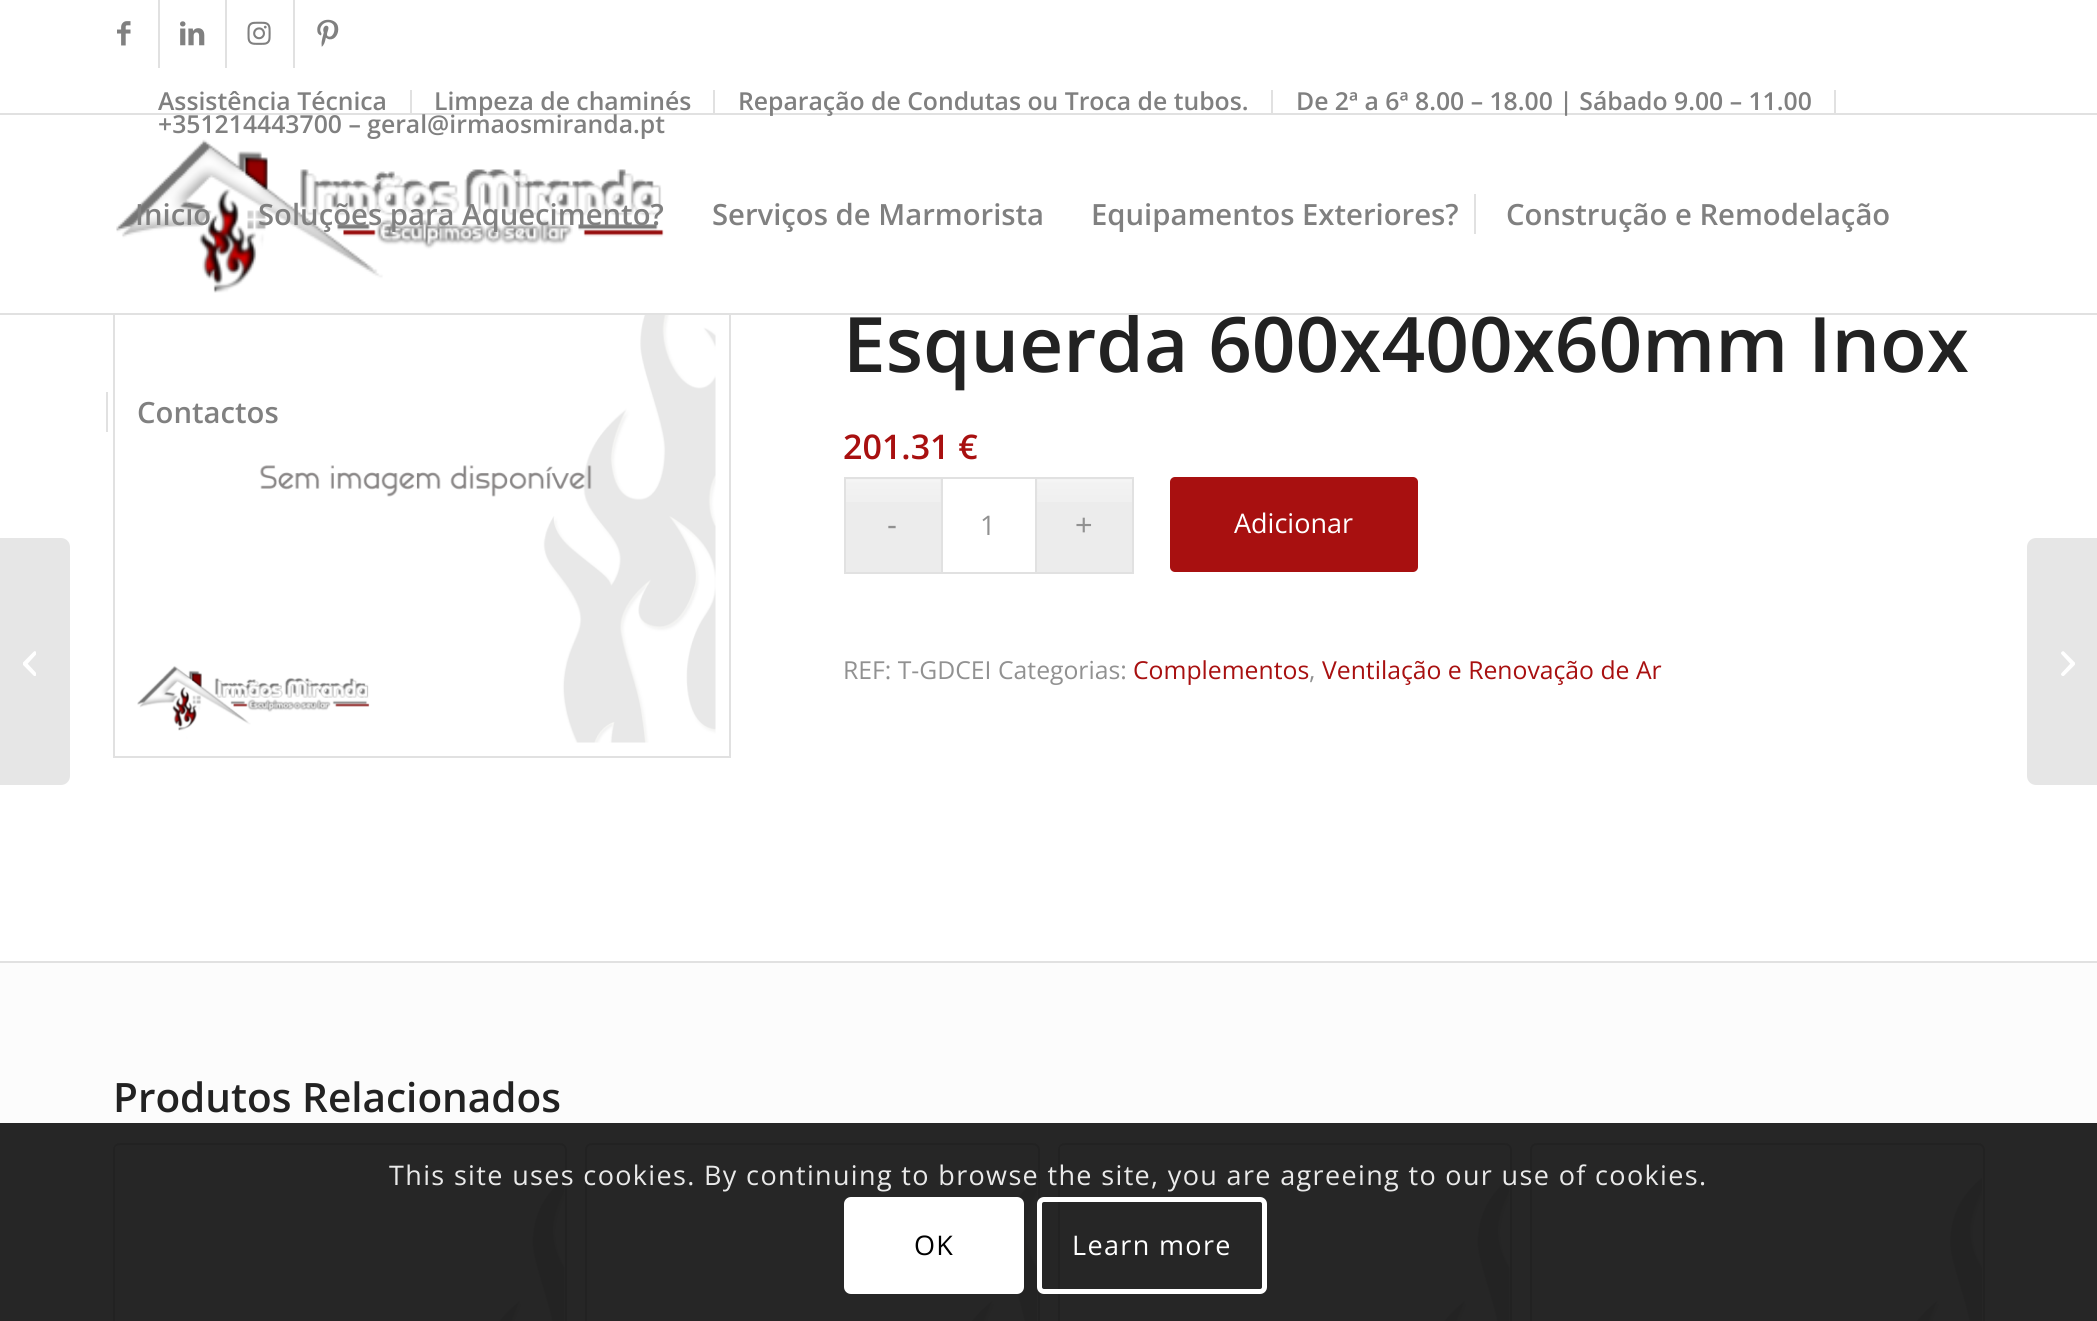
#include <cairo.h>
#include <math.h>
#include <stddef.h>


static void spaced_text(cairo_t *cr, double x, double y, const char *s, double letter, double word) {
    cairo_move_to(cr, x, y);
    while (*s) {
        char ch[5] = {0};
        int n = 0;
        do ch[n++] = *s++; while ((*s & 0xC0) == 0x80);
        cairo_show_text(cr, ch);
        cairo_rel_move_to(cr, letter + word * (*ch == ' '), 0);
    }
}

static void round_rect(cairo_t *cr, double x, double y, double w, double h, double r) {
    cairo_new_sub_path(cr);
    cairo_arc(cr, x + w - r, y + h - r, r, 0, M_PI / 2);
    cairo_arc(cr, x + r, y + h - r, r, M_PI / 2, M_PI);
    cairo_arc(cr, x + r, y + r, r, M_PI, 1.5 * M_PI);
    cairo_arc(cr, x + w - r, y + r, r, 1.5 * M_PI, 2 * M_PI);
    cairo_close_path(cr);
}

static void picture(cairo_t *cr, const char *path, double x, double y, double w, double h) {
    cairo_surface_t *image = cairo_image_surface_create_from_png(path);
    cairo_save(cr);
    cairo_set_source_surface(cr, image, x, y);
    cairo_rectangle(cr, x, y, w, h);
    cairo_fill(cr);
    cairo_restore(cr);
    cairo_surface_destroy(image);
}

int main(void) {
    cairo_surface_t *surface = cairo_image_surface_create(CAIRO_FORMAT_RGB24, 2097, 1321);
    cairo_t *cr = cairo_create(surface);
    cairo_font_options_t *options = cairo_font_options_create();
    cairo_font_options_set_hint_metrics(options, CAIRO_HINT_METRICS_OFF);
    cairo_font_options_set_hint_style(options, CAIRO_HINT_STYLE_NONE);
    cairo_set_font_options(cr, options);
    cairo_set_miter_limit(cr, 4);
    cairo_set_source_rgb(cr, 1, 1, 1);
    cairo_paint(cr);
    cairo_set_source_rgb(cr, 0.882, 0.882, 0.882);
    cairo_rectangle(cr, 0, 113, 2097, 2);
    cairo_fill(cr);
    cairo_rectangle(cr, 158, 0, 2, 68);
    cairo_fill(cr);
    picture(cr, "img1.png", 117, 21, 14, 25);
    cairo_rectangle(cr, 225, 0, 2, 68);
    cairo_fill(cr);
    picture(cr, "img2.png", 180, 21, 25, 25);
    cairo_rectangle(cr, 293, 0, 2, 68);
    cairo_fill(cr);
    picture(cr, "img3.png", 247, 21, 24, 24);
    picture(cr, "img4.png", 317, 19, 22, 28);
    cairo_rectangle(cr, 410, 90, 2, 23);
    cairo_fill(cr);
    cairo_select_font_face(cr, "Open Sans SemiBold", CAIRO_FONT_SLANT_NORMAL, CAIRO_FONT_WEIGHT_NORMAL);
    cairo_set_font_size(cr, 24.75);
    cairo_set_source_rgb(cr, 0.502, 0.502, 0.502);
    cairo_move_to(cr, 158, 110);
    cairo_show_text(cr, "Assistência Técnica");
    cairo_set_source_rgb(cr, 0.882, 0.882, 0.882);
    cairo_rectangle(cr, 713, 90, 2, 23);
    cairo_fill(cr);
    cairo_set_source_rgb(cr, 0.502, 0.502, 0.502);
    cairo_move_to(cr, 434, 110);
    cairo_show_text(cr, "Limpeza de chaminés");
    cairo_set_source_rgb(cr, 0.882, 0.882, 0.882);
    cairo_rectangle(cr, 1271, 90, 2, 23);
    cairo_fill(cr);
    cairo_set_source_rgb(cr, 0.502, 0.502, 0.502);
    cairo_move_to(cr, 738, 110);
    cairo_show_text(cr, "Reparação de Condutas ou Troca de tubos.");
    cairo_set_source_rgb(cr, 0.882, 0.882, 0.882);
    cairo_rectangle(cr, 1834, 90, 2, 23);
    cairo_fill(cr);
    cairo_set_source_rgb(cr, 0.502, 0.502, 0.502);
    cairo_move_to(cr, 1296, 110);
    cairo_show_text(cr, "De 2ª a 6ª 8.00 – 18.00 | Sábado 9.00 – 11.00");
    cairo_move_to(cr, 158, 133);
    cairo_show_text(cr, "+351214443700 – geral@irmaosmiranda.pt");
    cairo_rectangle(cr, 114, 219, 616, 538);
    cairo_set_source_rgb(cr, 0.882, 0.882, 0.882);
    cairo_stroke(cr);
    cairo_set_font_size(cr, 76.5);
    cairo_set_source_rgb(cr, 0.133, 0.133, 0.133);
    cairo_move_to(cr, 843, 372);
    cairo_show_text(cr, "Esquerda 600x400x60mm Inox");
    cairo_set_source_rgb(cr, 0.882, 0.882, 0.882);
    cairo_rectangle(cr, 0, 313, 2097, 2);
    cairo_fill(cr);
    cairo_set_source_rgb(cr, 1, 1, 1);
    cairo_rectangle(cr, 113, 218, 618, 95);
    cairo_fill(cr);
    picture(cr, "img5.png", 116, 139, 548, 154);
    cairo_set_font_size(cr, 29.25);
    cairo_set_source_rgb(cr, 0.502, 0.502, 0.502);
    cairo_move_to(cr, 135, 225);
    cairo_show_text(cr, "Inicio");
    cairo_move_to(cr, 258, 225);
    cairo_show_text(cr, "Soluções para Aquecimento?");
    cairo_move_to(cr, 712, 225);
    cairo_show_text(cr, "Serviços de Marmorista");
    cairo_move_to(cr, 1091, 225);
    cairo_show_text(cr, "Equipamentos Exteriores?");
    cairo_move_to(cr, 1506, 225);
    cairo_show_text(cr, "Construção e Remodelação");
    cairo_set_source_rgb(cr, 0.882, 0.882, 0.882);
    cairo_rectangle(cr, 1474, 194, 2, 40);
    cairo_fill(cr);
    picture(cr, "img7.png", 137, 315, 579, 428);
    cairo_set_source_rgb(cr, 0.502, 0.502, 0.502);
    cairo_move_to(cr, 137, 423);
    cairo_show_text(cr, "Contactos");
    cairo_set_source_rgb(cr, 0.882, 0.882, 0.882);
    cairo_rectangle(cr, 106, 392, 2, 40);
    cairo_fill(cr);
    cairo_set_source_rgb(cr, 0.902, 0.902, 0.902);
    cairo_new_path(cr);
    cairo_move_to(cr, 0, 538);
    cairo_line_to(cr, 61, 538);
    cairo_curve_to(cr, 66, 538, 70, 542, 70, 547);
    cairo_line_to(cr, 70, 776);
    cairo_curve_to(cr, 70, 781, 66, 785, 61, 785);
    cairo_line_to(cr, 0, 785);
    cairo_close_path(cr);
    cairo_fill(cr);
    picture(cr, "img6.png", 23, 651, 13, 25);
    cairo_set_font_size(cr, 34);
    cairo_set_source_rgb(cr, 0.659, 0.063, 0.063);
    cairo_move_to(cr, 843, 459);
    cairo_show_text(cr, "201.31 €");
    cairo_set_source_rgb(cr, 0.922, 0.922, 0.922);
    cairo_rectangle(cr, 846, 479, 95, 93);
    cairo_fill(cr);
    picture(cr, "img8.png", 846, 479, 95, 23);
    cairo_rectangle(cr, 1037, 479, 95, 93);
    cairo_fill(cr);
    picture(cr, "img9.png", 1037, 479, 95, 23);
    cairo_select_font_face(cr, "Liberation Sans", CAIRO_FONT_SLANT_NORMAL, CAIRO_FONT_WEIGHT_NORMAL);
    cairo_set_font_size(cr, 30);
    cairo_set_source_rgb(cr, 0.569, 0.569, 0.569);
    cairo_move_to(cr, 887, 535);
    cairo_show_text(cr, "-");
    cairo_set_source_rgb(cr, 0.882, 0.882, 0.882);
    cairo_rectangle(cr, 844, 477, 97, 2);
    cairo_fill(cr);
    cairo_rectangle(cr, 844, 572, 97, 2);
    cairo_fill(cr);
    cairo_rectangle(cr, 844, 477, 2, 97);
    cairo_fill(cr);
    cairo_rectangle(cr, 942, 478, 94, 95);
    cairo_stroke(cr);
    cairo_select_font_face(cr, "Open Sans", CAIRO_FONT_SLANT_NORMAL, CAIRO_FONT_WEIGHT_NORMAL);
    cairo_set_font_size(cr, 27);
    cairo_set_source_rgb(cr, 0.569, 0.569, 0.569);
    cairo_move_to(cr, 980, 535);
    cairo_show_text(cr, "1");
    cairo_select_font_face(cr, "Liberation Sans", CAIRO_FONT_SLANT_NORMAL, CAIRO_FONT_WEIGHT_NORMAL);
    cairo_set_font_size(cr, 30);
    cairo_move_to(cr, 1075, 535);
    cairo_show_text(cr, "+");
    cairo_set_source_rgb(cr, 0.882, 0.882, 0.882);
    cairo_rectangle(cr, 1037, 477, 97, 2);
    cairo_fill(cr);
    cairo_rectangle(cr, 1132, 477, 2, 97);
    cairo_fill(cr);
    cairo_rectangle(cr, 1037, 572, 97, 2);
    cairo_fill(cr);
    cairo_set_source_rgb(cr, 0.659, 0.063, 0.063);
    round_rect(cr, 1170, 477, 248, 95, 5);
    cairo_fill(cr);
    cairo_select_font_face(cr, "Open Sans", CAIRO_FONT_SLANT_NORMAL, CAIRO_FONT_WEIGHT_NORMAL);
    cairo_set_font_size(cr, 27);
    cairo_set_source_rgb(cr, 1, 1, 1);
    cairo_move_to(cr, 1234, 533);
    cairo_show_text(cr, "Adicionar");
    cairo_set_font_size(cr, 24.75);
    cairo_set_source_rgb(cr, 0.569, 0.569, 0.569);
    cairo_move_to(cr, 843, 679);
    cairo_show_text(cr, "REF: T-GDCEI Categorias:");
    cairo_set_source_rgb(cr, 0.659, 0.063, 0.063);
    cairo_move_to(cr, 1133, 679);
    cairo_show_text(cr, "Complementos");
    cairo_set_source_rgb(cr, 0.569, 0.569, 0.569);
    cairo_move_to(cr, 1309, 679);
    cairo_show_text(cr, ",");
    cairo_set_source_rgb(cr, 0.659, 0.063, 0.063);
    cairo_move_to(cr, 1322, 679);
    cairo_show_text(cr, "Ventilação e Renovação de Ar");
    cairo_set_source_rgb(cr, 0.988, 0.988, 0.988);
    cairo_rectangle(cr, 0, 963, 2097, 160);
    cairo_fill(cr);
    cairo_set_source_rgb(cr, 0.149, 0.149, 0.149);
    cairo_rectangle(cr, 0, 1123, 2097, 198);
    cairo_fill(cr);
    cairo_set_source_rgb(cr, 0.882, 0.882, 0.882);
    cairo_rectangle(cr, 0, 961, 2097, 2);
    cairo_fill(cr);
    cairo_select_font_face(cr, "Open Sans SemiBold", CAIRO_FONT_SLANT_NORMAL, CAIRO_FONT_WEIGHT_NORMAL);
    cairo_set_font_size(cr, 40.5);
    cairo_set_source_rgb(cr, 0.133, 0.133, 0.133);
    cairo_move_to(cr, 113, 1112);
    cairo_show_text(cr, "Produtos Relacionados");
    round_rect(cr, 114, 1144, 452, 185, 6);
    cairo_stroke(cr);
    picture(cr, "img10.png", 115, 1146, 450, 175);
    round_rect(cr, 586, 1144, 453, 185, 6);
    cairo_stroke(cr);
    picture(cr, "img11.png", 588, 1146, 449, 175);
    round_rect(cr, 1059, 1144, 452, 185, 6);
    cairo_stroke(cr);
    picture(cr, "img10.png", 1060, 1146, 450, 175);
    round_rect(cr, 1531, 1144, 453, 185, 6);
    cairo_stroke(cr);
    picture(cr, "img11.png", 1533, 1146, 449, 175);
    cairo_set_source_rgb(cr, 0.902, 0.902, 0.902);
    cairo_new_path(cr);
    cairo_move_to(cr, 2036, 538);
    cairo_line_to(cr, 2097, 538);
    cairo_line_to(cr, 2097, 785);
    cairo_line_to(cr, 2036, 785);
    cairo_curve_to(cr, 2031, 785, 2027, 781, 2027, 776);
    cairo_line_to(cr, 2027, 547);
    cairo_curve_to(cr, 2027, 542, 2031, 538, 2036, 538);
    cairo_close_path(cr);
    cairo_fill(cr);
    picture(cr, "img12.png", 2061, 651, 14, 25);
    cairo_select_font_face(cr, "Open Sans", CAIRO_FONT_SLANT_NORMAL, CAIRO_FONT_WEIGHT_NORMAL);
    cairo_set_font_size(cr, 27);
    cairo_set_source_rgb(cr, 0.914, 0.914, 0.914);
    spaced_text(cr, 389, 1185, "This site uses cookies. By continuing to browse the site, you are agreeing to our use of cookies.", 1.35, 0);
    cairo_set_source_rgb(cr, 1, 1, 1);
    round_rect(cr, 844, 1197, 180, 97, 7);
    cairo_fill(cr);
    cairo_set_source_rgb(cr, 0, 0, 0);
    spaced_text(cr, 914, 1255, "OK", 1.35, 0);
    round_rect(cr, 1039.5, 1199.5, 225, 92, 4.5);
    cairo_set_source_rgb(cr, 1, 1, 1);
    cairo_set_line_width(cr, 5);
    cairo_stroke(cr);
    spaced_text(cr, 1072, 1255, "Learn more", 1.35, 0);
    cairo_surface_write_to_png(surface, "page.png");
    cairo_font_options_destroy(options);
    cairo_destroy(cr);
    cairo_surface_destroy(surface);
    return 0;
}
